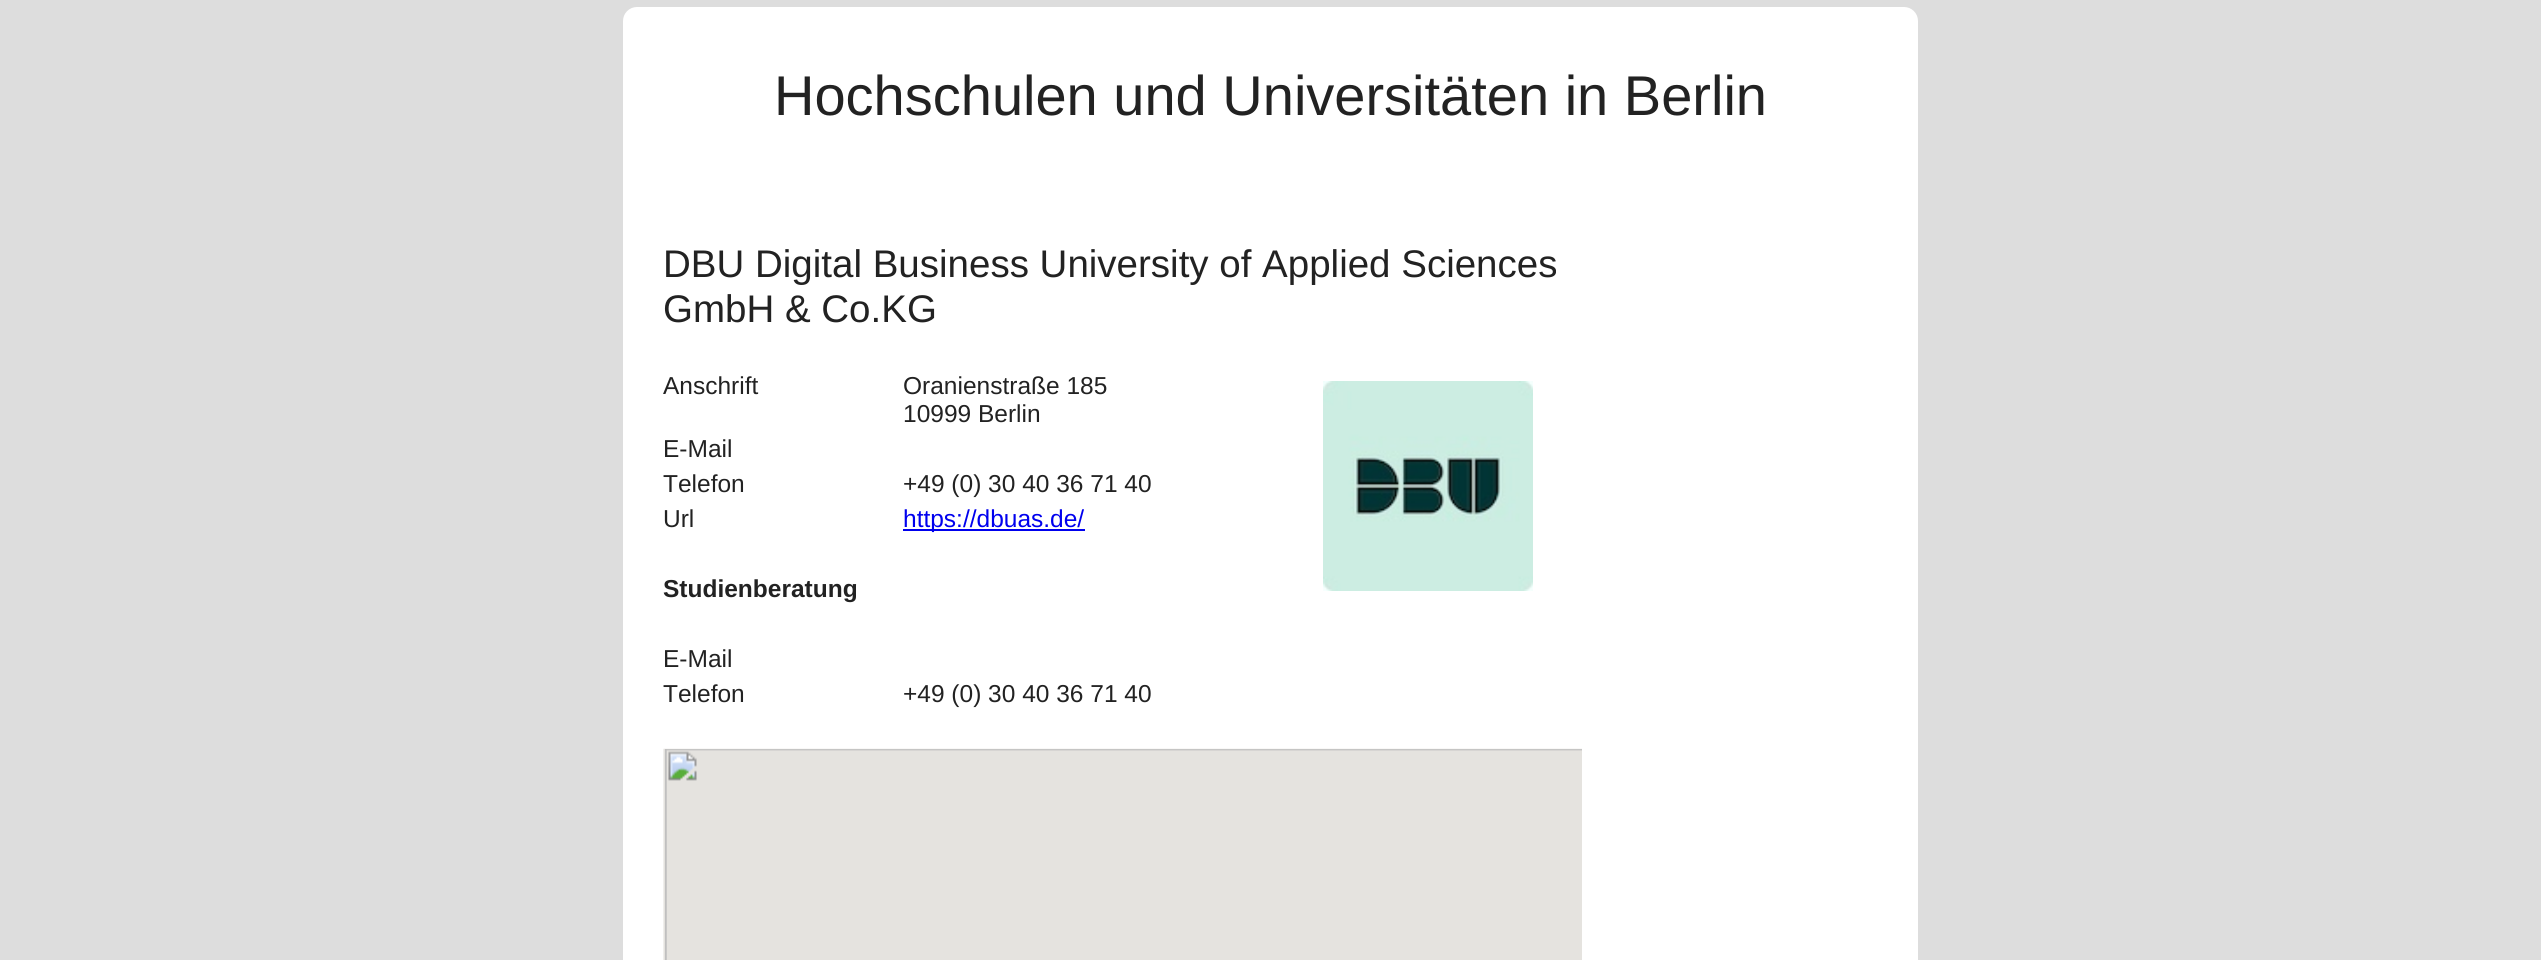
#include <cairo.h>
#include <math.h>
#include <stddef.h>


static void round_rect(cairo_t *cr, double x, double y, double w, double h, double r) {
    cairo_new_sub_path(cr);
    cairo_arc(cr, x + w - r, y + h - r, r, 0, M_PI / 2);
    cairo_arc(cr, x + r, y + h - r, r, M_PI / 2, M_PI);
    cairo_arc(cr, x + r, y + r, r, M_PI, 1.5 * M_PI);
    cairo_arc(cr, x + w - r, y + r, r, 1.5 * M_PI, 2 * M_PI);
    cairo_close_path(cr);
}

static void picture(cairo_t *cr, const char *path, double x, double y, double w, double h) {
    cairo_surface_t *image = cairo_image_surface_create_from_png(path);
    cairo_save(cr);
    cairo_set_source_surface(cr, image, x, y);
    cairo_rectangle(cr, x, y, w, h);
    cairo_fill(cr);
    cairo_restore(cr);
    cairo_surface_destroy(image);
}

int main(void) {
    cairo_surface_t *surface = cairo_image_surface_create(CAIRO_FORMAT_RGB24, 2541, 960);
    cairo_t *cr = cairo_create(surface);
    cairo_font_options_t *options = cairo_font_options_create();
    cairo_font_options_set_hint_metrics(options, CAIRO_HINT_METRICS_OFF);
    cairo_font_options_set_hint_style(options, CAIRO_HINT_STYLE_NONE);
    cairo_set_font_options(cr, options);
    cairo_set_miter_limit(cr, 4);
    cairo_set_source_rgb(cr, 0.867, 0.867, 0.867);
    cairo_paint(cr);
    cairo_set_source_rgb(cr, 1, 1, 1);
    round_rect(cr, 623, 7, 1295, 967, 14);
    cairo_fill(cr);
    cairo_select_font_face(cr, "Liberation Sans", CAIRO_FONT_SLANT_NORMAL, CAIRO_FONT_WEIGHT_NORMAL);
    cairo_set_font_size(cr, 56);
    cairo_set_source_rgb(cr, 0.133, 0.133, 0.133);
    cairo_move_to(cr, 774, 115);
    cairo_show_text(cr, "Hochschulen und Universitäten in Berlin");
    cairo_set_font_size(cr, 38.5);
    cairo_move_to(cr, 663, 277);
    cairo_show_text(cr, "DBU Digital Business University of Applied Sciences");
    cairo_move_to(cr, 663, 322);
    cairo_show_text(cr, "GmbH & Co.KG");
    cairo_set_font_size(cr, 24.5);
    cairo_move_to(cr, 663, 394);
    cairo_show_text(cr, "Anschrift");
    cairo_move_to(cr, 903, 394);
    cairo_show_text(cr, "Oranienstraße 185");
    cairo_move_to(cr, 903, 422);
    cairo_show_text(cr, "10999 Berlin");
    picture(cr, "img1.png", 1323, 381, 210, 210);
    cairo_move_to(cr, 663, 457);
    cairo_show_text(cr, "E-Mail");
    cairo_move_to(cr, 663, 492);
    cairo_show_text(cr, "Telefon");
    cairo_move_to(cr, 903, 492);
    cairo_show_text(cr, "+49 (0) 30 40 36 71 40");
    cairo_move_to(cr, 663, 527);
    cairo_show_text(cr, "Url");
    cairo_set_source_rgb(cr, 0, 0, 0.933);
    cairo_rectangle(cr, 903, 529, 182, 2);
    cairo_fill(cr);
    cairo_move_to(cr, 903, 527);
    cairo_show_text(cr, "https://dbuas.de/");
    cairo_select_font_face(cr, "Liberation Sans", CAIRO_FONT_SLANT_NORMAL, CAIRO_FONT_WEIGHT_BOLD);
    cairo_set_source_rgb(cr, 0.133, 0.133, 0.133);
    cairo_move_to(cr, 663, 597);
    cairo_show_text(cr, "Studienberatung");
    cairo_select_font_face(cr, "Liberation Sans", CAIRO_FONT_SLANT_NORMAL, CAIRO_FONT_WEIGHT_NORMAL);
    cairo_move_to(cr, 663, 667);
    cairo_show_text(cr, "E-Mail");
    cairo_move_to(cr, 663, 702);
    cairo_show_text(cr, "Telefon");
    cairo_move_to(cr, 903, 702);
    cairo_show_text(cr, "+49 (0) 30 40 36 71 40");
    picture(cr, "img2.png", 663, 748, 919, 212);
    cairo_surface_write_to_png(surface, "page.png");
    cairo_font_options_destroy(options);
    cairo_destroy(cr);
    cairo_surface_destroy(surface);
    return 0;
}
